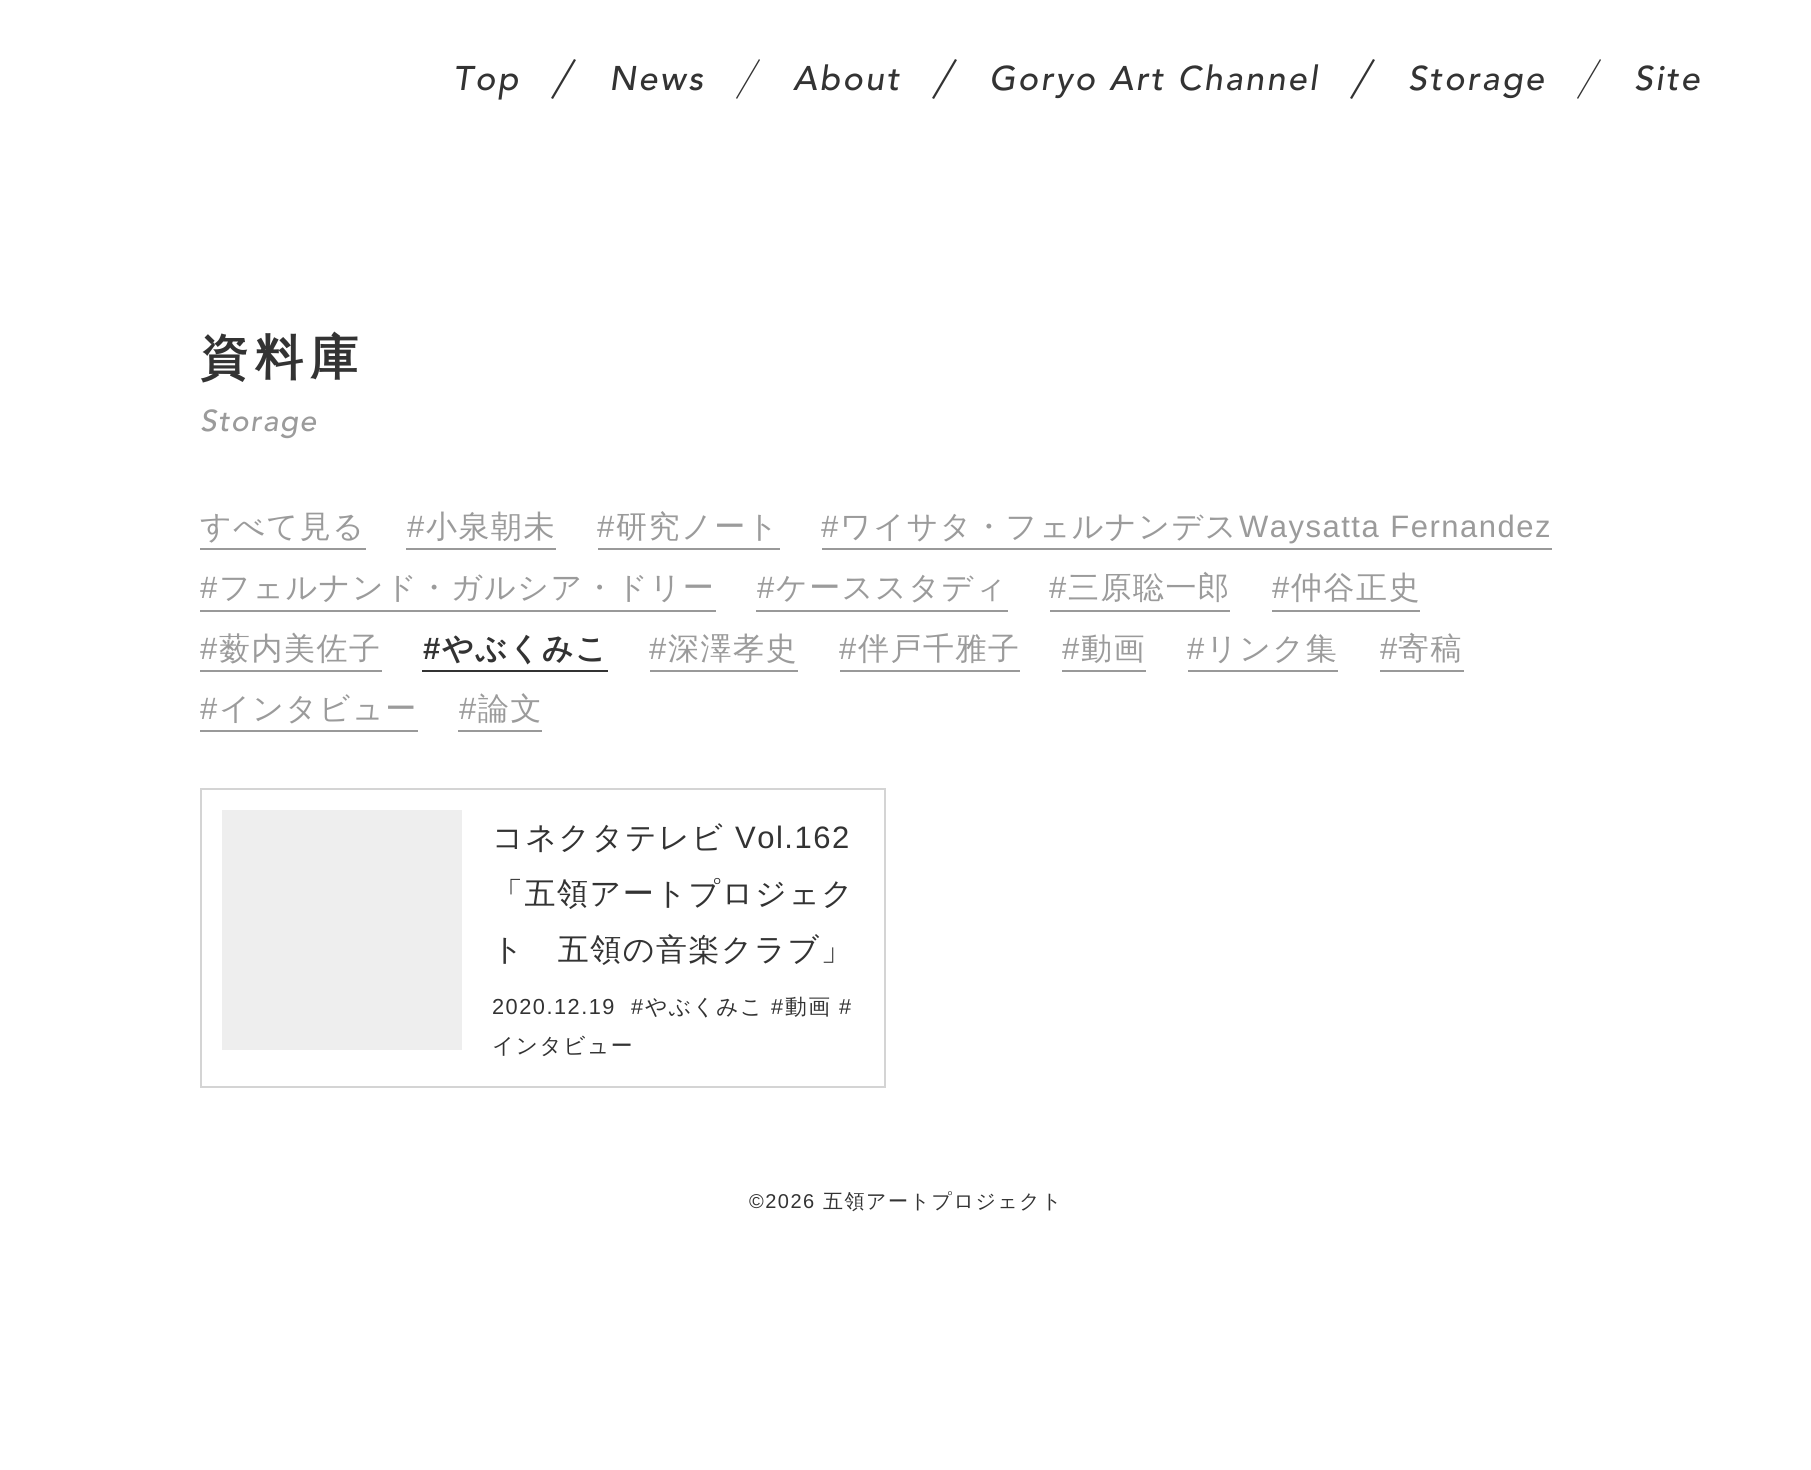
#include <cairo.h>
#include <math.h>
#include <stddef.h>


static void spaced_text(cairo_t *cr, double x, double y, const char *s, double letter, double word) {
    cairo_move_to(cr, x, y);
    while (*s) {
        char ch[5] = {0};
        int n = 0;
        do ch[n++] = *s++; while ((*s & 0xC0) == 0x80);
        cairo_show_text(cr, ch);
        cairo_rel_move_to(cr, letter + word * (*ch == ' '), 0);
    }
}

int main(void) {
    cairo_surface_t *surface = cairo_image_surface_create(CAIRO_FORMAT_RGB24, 1811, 1470);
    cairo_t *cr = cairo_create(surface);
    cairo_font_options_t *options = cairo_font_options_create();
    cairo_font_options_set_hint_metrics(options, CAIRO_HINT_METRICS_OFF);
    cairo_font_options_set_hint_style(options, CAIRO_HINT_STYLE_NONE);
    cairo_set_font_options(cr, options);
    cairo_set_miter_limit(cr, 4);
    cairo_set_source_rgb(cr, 1, 1, 1);
    cairo_paint(cr);
    cairo_select_font_face(cr, "Avenir Medium", CAIRO_FONT_SLANT_ITALIC, CAIRO_FONT_WEIGHT_NORMAL);
    cairo_set_font_size(cr, 34);
    cairo_set_source_rgb(cr, 0.2, 0.2, 0.2);
    spaced_text(cr, 453, 90, "Top", 2.4, 0);
    cairo_new_path(cr);
    cairo_move_to(cr, 574, 59);
    cairo_line_to(cr, 576, 60);
    cairo_line_to(cr, 553, 99);
    cairo_line_to(cr, 551, 98);
    cairo_close_path(cr);
    cairo_fill(cr);
    spaced_text(cr, 609, 90, "News", 2.4, 0);
    cairo_new_path(cr);
    cairo_move_to(cr, 759, 59);
    cairo_line_to(cr, 760, 60);
    cairo_line_to(cr, 737, 99);
    cairo_line_to(cr, 736, 98);
    cairo_close_path(cr);
    cairo_fill(cr);
    spaced_text(cr, 793, 90, "About", 2.4, 0);
    cairo_new_path(cr);
    cairo_move_to(cr, 955, 59);
    cairo_line_to(cr, 957, 60);
    cairo_line_to(cr, 934, 99);
    cairo_line_to(cr, 932, 98);
    cairo_close_path(cr);
    cairo_fill(cr);
    spaced_text(cr, 989, 90, "Goryo Art Channel", 2.4, 0);
    cairo_new_path(cr);
    cairo_move_to(cr, 1373, 59);
    cairo_line_to(cr, 1375, 60);
    cairo_line_to(cr, 1352, 99);
    cairo_line_to(cr, 1350, 98);
    cairo_close_path(cr);
    cairo_fill(cr);
    spaced_text(cr, 1408, 90, "Storage", 2.4, 0);
    cairo_new_path(cr);
    cairo_move_to(cr, 1600, 59);
    cairo_line_to(cr, 1601, 60);
    cairo_line_to(cr, 1578, 99);
    cairo_line_to(cr, 1577, 98);
    cairo_close_path(cr);
    cairo_fill(cr);
    spaced_text(cr, 1634, 90, "Site", 2.4, 0);
    cairo_select_font_face(cr, "WenQuanYi Zen Hei", CAIRO_FONT_SLANT_NORMAL, CAIRO_FONT_WEIGHT_BOLD);
    cairo_set_font_size(cr, 48);
    spaced_text(cr, 200, 374, "資料庫", 7, 0);
    cairo_select_font_face(cr, "Avenir Medium", CAIRO_FONT_SLANT_ITALIC, CAIRO_FONT_WEIGHT_NORMAL);
    cairo_set_font_size(cr, 30);
    cairo_set_source_rgb(cr, 0.608, 0.608, 0.608);
    spaced_text(cr, 200, 431, "Storage", 1.5, 0);
    cairo_set_source_rgb(cr, 0.6, 0.6, 0.6);
    cairo_rectangle(cr, 200, 548, 166, 2);
    cairo_fill(cr);
    cairo_select_font_face(cr, "WenQuanYi Zen Hei Medium", CAIRO_FONT_SLANT_NORMAL, CAIRO_FONT_WEIGHT_NORMAL);
    cairo_set_font_size(cr, 31);
    cairo_set_source_rgb(cr, 0.608, 0.608, 0.608);
    spaced_text(cr, 200, 537, "すべて見る", 1.5, 0);
    cairo_set_source_rgb(cr, 0.6, 0.6, 0.6);
    cairo_rectangle(cr, 406, 548, 150, 2);
    cairo_fill(cr);
    cairo_select_font_face(cr, "Liberation Sans", CAIRO_FONT_SLANT_NORMAL, CAIRO_FONT_WEIGHT_NORMAL);
    cairo_set_source_rgb(cr, 0.608, 0.608, 0.608);
    spaced_text(cr, 407, 537, "#", 1.5, 0);
    cairo_select_font_face(cr, "WenQuanYi Zen Hei Medium", CAIRO_FONT_SLANT_NORMAL, CAIRO_FONT_WEIGHT_NORMAL);
    spaced_text(cr, 426, 537, "小泉朝未", 1.5, 0);
    cairo_set_source_rgb(cr, 0.6, 0.6, 0.6);
    cairo_rectangle(cr, 598, 548, 182, 2);
    cairo_fill(cr);
    cairo_select_font_face(cr, "Liberation Sans", CAIRO_FONT_SLANT_NORMAL, CAIRO_FONT_WEIGHT_NORMAL);
    cairo_set_source_rgb(cr, 0.608, 0.608, 0.608);
    spaced_text(cr, 597, 537, "#", 1.5, 0);
    cairo_select_font_face(cr, "WenQuanYi Zen Hei Medium", CAIRO_FONT_SLANT_NORMAL, CAIRO_FONT_WEIGHT_NORMAL);
    spaced_text(cr, 616, 537, "研究ノート", 1.5, 0);
    cairo_set_source_rgb(cr, 0.6, 0.6, 0.6);
    cairo_rectangle(cr, 822, 548, 730, 2);
    cairo_fill(cr);
    cairo_select_font_face(cr, "Liberation Sans", CAIRO_FONT_SLANT_NORMAL, CAIRO_FONT_WEIGHT_NORMAL);
    cairo_set_source_rgb(cr, 0.608, 0.608, 0.608);
    spaced_text(cr, 821, 537, "#", 1.5, 0);
    cairo_select_font_face(cr, "WenQuanYi Zen Hei Medium", CAIRO_FONT_SLANT_NORMAL, CAIRO_FONT_WEIGHT_NORMAL);
    spaced_text(cr, 840, 537, "ワイサタ・フェルナンデス", 1.5, 0);
    cairo_select_font_face(cr, "Liberation Sans", CAIRO_FONT_SLANT_NORMAL, CAIRO_FONT_WEIGHT_NORMAL);
    spaced_text(cr, 1239, 537, "Waysatta Fernandez", 1.5, 0);
    cairo_set_source_rgb(cr, 0.6, 0.6, 0.6);
    cairo_rectangle(cr, 200, 610, 516, 2);
    cairo_fill(cr);
    cairo_set_source_rgb(cr, 0.608, 0.608, 0.608);
    spaced_text(cr, 200, 598, "#", 1.5, 0);
    cairo_select_font_face(cr, "WenQuanYi Zen Hei Medium", CAIRO_FONT_SLANT_NORMAL, CAIRO_FONT_WEIGHT_NORMAL);
    spaced_text(cr, 219, 598, "フェルナンド・ガルシア・ドリー", 1.5, 0);
    cairo_set_source_rgb(cr, 0.6, 0.6, 0.6);
    cairo_rectangle(cr, 756, 610, 252, 2);
    cairo_fill(cr);
    cairo_select_font_face(cr, "Liberation Sans", CAIRO_FONT_SLANT_NORMAL, CAIRO_FONT_WEIGHT_NORMAL);
    cairo_set_source_rgb(cr, 0.608, 0.608, 0.608);
    spaced_text(cr, 757, 598, "#", 1.5, 0);
    cairo_select_font_face(cr, "WenQuanYi Zen Hei Medium", CAIRO_FONT_SLANT_NORMAL, CAIRO_FONT_WEIGHT_NORMAL);
    spaced_text(cr, 776, 598, "ケーススタディ", 1.5, 0);
    cairo_set_source_rgb(cr, 0.6, 0.6, 0.6);
    cairo_rectangle(cr, 1050, 610, 180, 2);
    cairo_fill(cr);
    cairo_select_font_face(cr, "Liberation Sans", CAIRO_FONT_SLANT_NORMAL, CAIRO_FONT_WEIGHT_NORMAL);
    cairo_set_source_rgb(cr, 0.608, 0.608, 0.608);
    spaced_text(cr, 1049, 598, "#", 1.5, 0);
    cairo_select_font_face(cr, "WenQuanYi Zen Hei Medium", CAIRO_FONT_SLANT_NORMAL, CAIRO_FONT_WEIGHT_NORMAL);
    spaced_text(cr, 1068, 598, "三原聡一郎", 1.5, 0);
    cairo_set_source_rgb(cr, 0.6, 0.6, 0.6);
    cairo_rectangle(cr, 1272, 610, 148, 2);
    cairo_fill(cr);
    cairo_select_font_face(cr, "Liberation Sans", CAIRO_FONT_SLANT_NORMAL, CAIRO_FONT_WEIGHT_NORMAL);
    cairo_set_source_rgb(cr, 0.608, 0.608, 0.608);
    spaced_text(cr, 1272, 598, "#", 1.5, 0);
    cairo_select_font_face(cr, "WenQuanYi Zen Hei Medium", CAIRO_FONT_SLANT_NORMAL, CAIRO_FONT_WEIGHT_NORMAL);
    spaced_text(cr, 1291, 598, "仲谷正史", 1.5, 0);
    cairo_set_source_rgb(cr, 0.6, 0.6, 0.6);
    cairo_rectangle(cr, 200, 670, 182, 2);
    cairo_fill(cr);
    cairo_select_font_face(cr, "Liberation Sans", CAIRO_FONT_SLANT_NORMAL, CAIRO_FONT_WEIGHT_NORMAL);
    cairo_set_source_rgb(cr, 0.608, 0.608, 0.608);
    spaced_text(cr, 200, 659, "#", 1.5, 0);
    cairo_select_font_face(cr, "WenQuanYi Zen Hei Medium", CAIRO_FONT_SLANT_NORMAL, CAIRO_FONT_WEIGHT_NORMAL);
    spaced_text(cr, 219, 659, "薮内美佐子", 1.5, 0);
    cairo_set_source_rgb(cr, 0.2, 0.2, 0.2);
    cairo_rectangle(cr, 422, 670, 186, 2);
    cairo_fill(cr);
    cairo_select_font_face(cr, "Liberation Sans", CAIRO_FONT_SLANT_NORMAL, CAIRO_FONT_WEIGHT_BOLD);
    spaced_text(cr, 423, 659, "#", 1.5, 0);
    cairo_select_font_face(cr, "WenQuanYi Zen Hei", CAIRO_FONT_SLANT_NORMAL, CAIRO_FONT_WEIGHT_BOLD);
    spaced_text(cr, 442, 659, "やぶくみこ", 1.5, 0);
    cairo_set_source_rgb(cr, 0.6, 0.6, 0.6);
    cairo_rectangle(cr, 650, 670, 148, 2);
    cairo_fill(cr);
    cairo_select_font_face(cr, "Liberation Sans", CAIRO_FONT_SLANT_NORMAL, CAIRO_FONT_WEIGHT_NORMAL);
    cairo_set_source_rgb(cr, 0.608, 0.608, 0.608);
    spaced_text(cr, 649, 659, "#", 1.5, 0);
    cairo_select_font_face(cr, "WenQuanYi Zen Hei Medium", CAIRO_FONT_SLANT_NORMAL, CAIRO_FONT_WEIGHT_NORMAL);
    spaced_text(cr, 668, 659, "深澤孝史", 1.5, 0);
    cairo_set_source_rgb(cr, 0.6, 0.6, 0.6);
    cairo_rectangle(cr, 840, 670, 180, 2);
    cairo_fill(cr);
    cairo_select_font_face(cr, "Liberation Sans", CAIRO_FONT_SLANT_NORMAL, CAIRO_FONT_WEIGHT_NORMAL);
    cairo_set_source_rgb(cr, 0.608, 0.608, 0.608);
    spaced_text(cr, 839, 659, "#", 1.5, 0);
    cairo_select_font_face(cr, "WenQuanYi Zen Hei Medium", CAIRO_FONT_SLANT_NORMAL, CAIRO_FONT_WEIGHT_NORMAL);
    spaced_text(cr, 858, 659, "伴戸千雅子", 1.5, 0);
    cairo_set_source_rgb(cr, 0.6, 0.6, 0.6);
    cairo_rectangle(cr, 1062, 670, 84, 2);
    cairo_fill(cr);
    cairo_select_font_face(cr, "Liberation Sans", CAIRO_FONT_SLANT_NORMAL, CAIRO_FONT_WEIGHT_NORMAL);
    cairo_set_source_rgb(cr, 0.608, 0.608, 0.608);
    spaced_text(cr, 1062, 659, "#", 1.5, 0);
    cairo_select_font_face(cr, "WenQuanYi Zen Hei Medium", CAIRO_FONT_SLANT_NORMAL, CAIRO_FONT_WEIGHT_NORMAL);
    spaced_text(cr, 1081, 659, "動画", 1.5, 0);
    cairo_set_source_rgb(cr, 0.6, 0.6, 0.6);
    cairo_rectangle(cr, 1188, 670, 150, 2);
    cairo_fill(cr);
    cairo_select_font_face(cr, "Liberation Sans", CAIRO_FONT_SLANT_NORMAL, CAIRO_FONT_WEIGHT_NORMAL);
    cairo_set_source_rgb(cr, 0.608, 0.608, 0.608);
    spaced_text(cr, 1187, 659, "#", 1.5, 0);
    cairo_select_font_face(cr, "WenQuanYi Zen Hei Medium", CAIRO_FONT_SLANT_NORMAL, CAIRO_FONT_WEIGHT_NORMAL);
    spaced_text(cr, 1206, 659, "リンク集", 1.5, 0);
    cairo_set_source_rgb(cr, 0.6, 0.6, 0.6);
    cairo_rectangle(cr, 1380, 670, 84, 2);
    cairo_fill(cr);
    cairo_select_font_face(cr, "Liberation Sans", CAIRO_FONT_SLANT_NORMAL, CAIRO_FONT_WEIGHT_NORMAL);
    cairo_set_source_rgb(cr, 0.608, 0.608, 0.608);
    spaced_text(cr, 1380, 659, "#", 1.5, 0);
    cairo_select_font_face(cr, "WenQuanYi Zen Hei Medium", CAIRO_FONT_SLANT_NORMAL, CAIRO_FONT_WEIGHT_NORMAL);
    spaced_text(cr, 1398, 659, "寄稿", 1.5, 0);
    cairo_set_source_rgb(cr, 0.6, 0.6, 0.6);
    cairo_rectangle(cr, 200, 730, 218, 2);
    cairo_fill(cr);
    cairo_select_font_face(cr, "Liberation Sans", CAIRO_FONT_SLANT_NORMAL, CAIRO_FONT_WEIGHT_NORMAL);
    cairo_set_source_rgb(cr, 0.608, 0.608, 0.608);
    spaced_text(cr, 200, 719, "#", 1.5, 0);
    cairo_select_font_face(cr, "WenQuanYi Zen Hei Medium", CAIRO_FONT_SLANT_NORMAL, CAIRO_FONT_WEIGHT_NORMAL);
    spaced_text(cr, 219, 719, "インタビュー", 1.5, 0);
    cairo_set_source_rgb(cr, 0.6, 0.6, 0.6);
    cairo_rectangle(cr, 458, 730, 84, 2);
    cairo_fill(cr);
    cairo_select_font_face(cr, "Liberation Sans", CAIRO_FONT_SLANT_NORMAL, CAIRO_FONT_WEIGHT_NORMAL);
    cairo_set_source_rgb(cr, 0.608, 0.608, 0.608);
    spaced_text(cr, 459, 719, "#", 1.5, 0);
    cairo_select_font_face(cr, "WenQuanYi Zen Hei Medium", CAIRO_FONT_SLANT_NORMAL, CAIRO_FONT_WEIGHT_NORMAL);
    spaced_text(cr, 478, 719, "論文", 1.5, 0);
    cairo_rectangle(cr, 201, 789, 684, 298);
    cairo_set_source_rgb(cr, 0.831, 0.831, 0.831);
    cairo_stroke(cr);
    cairo_set_source_rgb(cr, 0.933, 0.933, 0.933);
    cairo_rectangle(cr, 222, 810, 240, 240);
    cairo_fill(cr);
    cairo_set_source_rgb(cr, 0.2, 0.2, 0.2);
    spaced_text(cr, 492, 848, "コネクタテレビ", 1.5, 0);
    cairo_select_font_face(cr, "Liberation Sans", CAIRO_FONT_SLANT_NORMAL, CAIRO_FONT_WEIGHT_NORMAL);
    spaced_text(cr, 735, 848, "Vol.162", 1.5, 0);
    cairo_select_font_face(cr, "WenQuanYi Zen Hei Medium", CAIRO_FONT_SLANT_NORMAL, CAIRO_FONT_WEIGHT_NORMAL);
    spaced_text(cr, 492, 904, "「五領アートプロジェク", 1.5, 0);
    spaced_text(cr, 492, 960, "ト　五領の音楽クラブ」", 1.5, 0);
    cairo_select_font_face(cr, "Liberation Sans", CAIRO_FONT_SLANT_NORMAL, CAIRO_FONT_WEIGHT_NORMAL);
    cairo_set_font_size(cr, 21.75);
    spaced_text(cr, 492, 1014, "2020.12.19", 1.5, 0);
    spaced_text(cr, 631, 1014, "#", 1.5, 0);
    cairo_select_font_face(cr, "WenQuanYi Zen Hei Medium", CAIRO_FONT_SLANT_NORMAL, CAIRO_FONT_WEIGHT_NORMAL);
    spaced_text(cr, 645, 1014, "やぶくみこ", 1.5, 0);
    cairo_select_font_face(cr, "Liberation Sans", CAIRO_FONT_SLANT_NORMAL, CAIRO_FONT_WEIGHT_NORMAL);
    spaced_text(cr, 771, 1014, "#", 1.5, 0);
    cairo_select_font_face(cr, "WenQuanYi Zen Hei Medium", CAIRO_FONT_SLANT_NORMAL, CAIRO_FONT_WEIGHT_NORMAL);
    spaced_text(cr, 785, 1014, "動画", 1.5, 0);
    cairo_select_font_face(cr, "Liberation Sans", CAIRO_FONT_SLANT_NORMAL, CAIRO_FONT_WEIGHT_NORMAL);
    spaced_text(cr, 839, 1014, "#", 1.5, 0);
    cairo_select_font_face(cr, "WenQuanYi Zen Hei Medium", CAIRO_FONT_SLANT_NORMAL, CAIRO_FONT_WEIGHT_NORMAL);
    spaced_text(cr, 492, 1053, "インタビュー", 1.5, 0);
    cairo_select_font_face(cr, "Liberation Sans", CAIRO_FONT_SLANT_NORMAL, CAIRO_FONT_WEIGHT_NORMAL);
    cairo_set_font_size(cr, 20);
    spaced_text(cr, 749, 1208, "©2026", 1.5, 0);
    cairo_select_font_face(cr, "WenQuanYi Zen Hei Medium", CAIRO_FONT_SLANT_NORMAL, CAIRO_FONT_WEIGHT_NORMAL);
    spaced_text(cr, 823, 1208, "五領アートプロジェクト", 1.5, 0);
    cairo_surface_write_to_png(surface, "page.png");
    cairo_font_options_destroy(options);
    cairo_destroy(cr);
    cairo_surface_destroy(surface);
    return 0;
}
